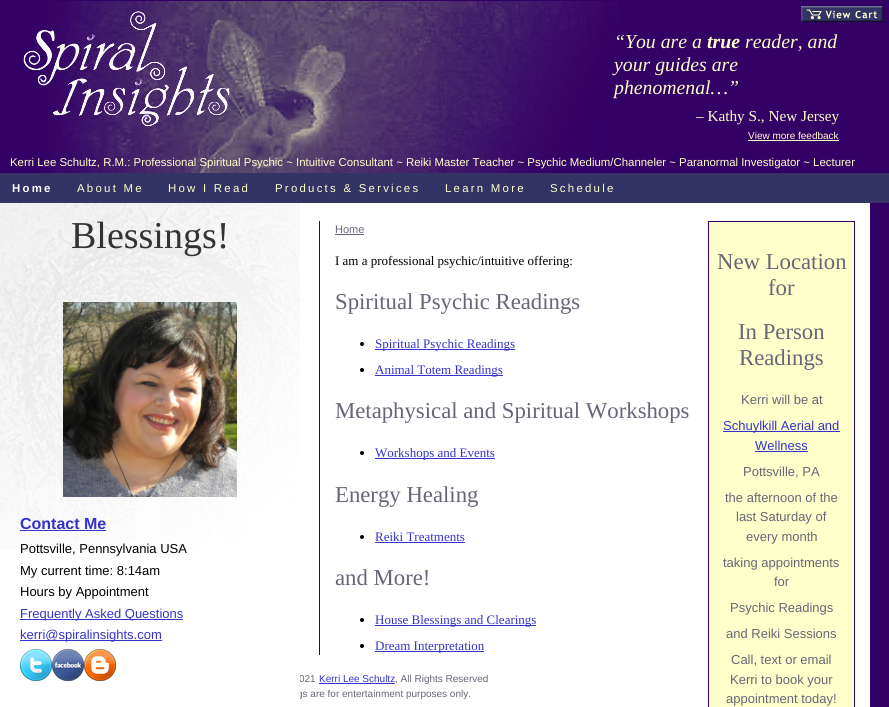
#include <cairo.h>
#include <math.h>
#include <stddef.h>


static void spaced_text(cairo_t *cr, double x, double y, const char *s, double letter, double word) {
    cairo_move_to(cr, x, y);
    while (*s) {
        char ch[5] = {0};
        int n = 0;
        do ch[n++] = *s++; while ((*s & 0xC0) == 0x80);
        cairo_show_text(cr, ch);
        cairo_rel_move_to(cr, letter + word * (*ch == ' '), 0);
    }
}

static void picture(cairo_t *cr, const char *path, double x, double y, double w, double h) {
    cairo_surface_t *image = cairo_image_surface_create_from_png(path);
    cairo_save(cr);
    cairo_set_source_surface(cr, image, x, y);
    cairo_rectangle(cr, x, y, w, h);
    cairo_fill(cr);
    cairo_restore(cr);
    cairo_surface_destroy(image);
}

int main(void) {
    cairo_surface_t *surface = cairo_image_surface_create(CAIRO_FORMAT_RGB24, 889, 707);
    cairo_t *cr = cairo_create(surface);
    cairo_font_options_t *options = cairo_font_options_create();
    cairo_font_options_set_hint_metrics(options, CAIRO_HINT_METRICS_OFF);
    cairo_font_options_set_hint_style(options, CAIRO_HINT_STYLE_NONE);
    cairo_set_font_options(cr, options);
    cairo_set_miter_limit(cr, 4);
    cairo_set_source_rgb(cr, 0.2, 0, 0.4);
    cairo_paint(cr);
    cairo_set_source_rgb(cr, 1, 1, 1);
    cairo_rectangle(cr, 300, 203, 570, 504);
    cairo_fill(cr);
    picture(cr, "img1.png", 801, 6, 82, 16);
    picture(cr, "img2.png", 19, 1, 600, 172);
    cairo_select_font_face(cr, "Liberation Serif", CAIRO_FONT_SLANT_ITALIC, CAIRO_FONT_WEIGHT_NORMAL);
    cairo_set_font_size(cr, 19.75);
    cairo_set_source_rgb(cr, 1, 1, 0.8);
    cairo_move_to(cr, 614, 48);
    cairo_show_text(cr, "“You are a");
    cairo_select_font_face(cr, "Liberation Serif", CAIRO_FONT_SLANT_ITALIC, CAIRO_FONT_WEIGHT_BOLD);
    cairo_move_to(cr, 707, 48);
    cairo_show_text(cr, "true");
    cairo_select_font_face(cr, "Liberation Serif", CAIRO_FONT_SLANT_ITALIC, CAIRO_FONT_WEIGHT_NORMAL);
    cairo_move_to(cr, 745, 48);
    cairo_show_text(cr, "reader, and");
    cairo_move_to(cr, 614, 71);
    cairo_show_text(cr, "your guides are");
    cairo_move_to(cr, 614, 94);
    cairo_show_text(cr, "phenomenal…”");
    cairo_select_font_face(cr, "Liberation Serif", CAIRO_FONT_SLANT_NORMAL, CAIRO_FONT_WEIGHT_NORMAL);
    cairo_set_font_size(cr, 15.25);
    cairo_move_to(cr, 696, 121);
    cairo_show_text(cr, "– Kathy S., New Jersey");
    cairo_select_font_face(cr, "Liberation Sans", CAIRO_FONT_SLANT_NORMAL, CAIRO_FONT_WEIGHT_NORMAL);
    cairo_set_font_size(cr, 10);
    cairo_move_to(cr, 748, 139);
    cairo_show_text(cr, "View more feedback");
    cairo_rectangle(cr, 748, 140, 91, 1);
    cairo_fill(cr);
    cairo_set_font_size(cr, 11.4);
    cairo_move_to(cr, 10, 166);
    cairo_show_text(cr, "Kerri Lee Schultz, R.M.: Professional Spiritual Psychic ~ Intuitive Consultant ~ Reiki Master Teacher ~ Psychic Medium/Channeler ~ Paranormal Investigator ~ Lecturer");
    cairo_set_source_rgb(cr, 0.2, 0.2, 0.4);
    cairo_rectangle(cr, 0, 173, 889, 30);
    cairo_fill(cr);
    cairo_select_font_face(cr, "Liberation Sans", CAIRO_FONT_SLANT_NORMAL, CAIRO_FONT_WEIGHT_BOLD);
    cairo_set_source_rgb(cr, 1, 1, 1);
    spaced_text(cr, 12, 192, "Home", 2.25, 0);
    cairo_select_font_face(cr, "Liberation Sans", CAIRO_FONT_SLANT_NORMAL, CAIRO_FONT_WEIGHT_NORMAL);
    cairo_set_source_rgb(cr, 1, 1, 0.8);
    spaced_text(cr, 77, 192, "About Me", 2.25, 0);
    spaced_text(cr, 168, 192, "How I Read", 2.25, 0);
    spaced_text(cr, 275, 192, "Products & Services", 2.25, 0);
    spaced_text(cr, 445, 192, "Learn More", 2.25, 0);
    spaced_text(cr, 550, 192, "Schedule", 2.25, 0);
    cairo_set_font_size(cr, 10);
    cairo_set_source_rgb(cr, 0.4, 0.4, 0.467);
    cairo_move_to(cr, 299, 682);
    cairo_show_text(cr, "021");
    cairo_move_to(cr, 297, 697);
    cairo_show_text(cr, "gs are for entertainment purposes only.");
    cairo_set_source_rgb(cr, 1, 1, 1);
    cairo_rectangle(cr, 0, 550, 300, 157);
    cairo_fill(cr);
    picture(cr, "img3.png", 0, 203, 300, 347);
    cairo_select_font_face(cr, "Liberation Serif", CAIRO_FONT_SLANT_NORMAL, CAIRO_FONT_WEIGHT_NORMAL);
    cairo_set_font_size(cr, 38);
    cairo_set_source_rgb(cr, 0.2, 0.2, 0.2);
    cairo_move_to(cr, 71, 248);
    cairo_show_text(cr, "Blessings!");
    picture(cr, "img4.png", 63, 302, 174, 195);
    cairo_select_font_face(cr, "Liberation Sans", CAIRO_FONT_SLANT_NORMAL, CAIRO_FONT_WEIGHT_BOLD);
    cairo_set_font_size(cr, 16);
    cairo_set_source_rgb(cr, 0.2, 0.2, 0.8);
    cairo_move_to(cr, 20, 529);
    cairo_show_text(cr, "Contact Me");
    cairo_rectangle(cr, 20, 530, 86, 1);
    cairo_fill(cr);
    cairo_select_font_face(cr, "Liberation Sans", CAIRO_FONT_SLANT_NORMAL, CAIRO_FONT_WEIGHT_NORMAL);
    cairo_set_font_size(cr, 13);
    cairo_set_source_rgb(cr, 0, 0, 0);
    cairo_move_to(cr, 20, 553);
    cairo_show_text(cr, "Pottsville, Pennsylvania USA");
    cairo_move_to(cr, 20, 575);
    cairo_show_text(cr, "My current time: 8:14am");
    cairo_move_to(cr, 20, 596);
    cairo_show_text(cr, "Hours by Appointment");
    cairo_set_source_rgb(cr, 0.2, 0.2, 0.8);
    cairo_rectangle(cr, 20, 619, 163, 1);
    cairo_fill(cr);
    cairo_move_to(cr, 20, 618);
    cairo_show_text(cr, "Frequently Asked Questions");
    cairo_rectangle(cr, 20, 640, 142, 1);
    cairo_fill(cr);
    cairo_move_to(cr, 20, 639);
    cairo_show_text(cr, "kerri@spiralinsights.com");
    picture(cr, "img5.png", 20, 649, 32, 32);
    picture(cr, "img6.png", 52, 649, 32, 32);
    picture(cr, "img7.png", 84, 649, 32, 32);
    cairo_set_source_rgb(cr, 0.2, 0, 0.4);
    cairo_rectangle(cr, 319, 221, 1, 434);
    cairo_fill(cr);
    cairo_set_font_size(cr, 11);
    cairo_set_source_rgb(cr, 0.4, 0.4, 0.467);
    cairo_move_to(cr, 335, 233);
    cairo_show_text(cr, "Home");
    cairo_rectangle(cr, 335, 234, 29, 1);
    cairo_fill(cr);
    cairo_select_font_face(cr, "Liberation Serif", CAIRO_FONT_SLANT_NORMAL, CAIRO_FONT_WEIGHT_NORMAL);
    cairo_set_font_size(cr, 13);
    cairo_set_source_rgb(cr, 0, 0, 0);
    cairo_move_to(cr, 335, 265);
    cairo_show_text(cr, "I am a professional psychic/intuitive offering:");
    cairo_set_source_rgb(cr, 1, 1, 0.8);
    cairo_rectangle(cr, 708.5, 221.5, 146, 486);
    cairo_fill_preserve(cr);
    cairo_set_source_rgb(cr, 0.2, 0, 0.4);
    cairo_set_line_width(cr, 1);
    cairo_stroke(cr);
    cairo_set_font_size(cr, 22.75);
    cairo_set_source_rgb(cr, 0.4, 0.4, 0.467);
    cairo_move_to(cr, 717, 269);
    cairo_show_text(cr, "New Location");
    cairo_move_to(cr, 768, 295);
    cairo_show_text(cr, "for");
    cairo_move_to(cr, 738, 339);
    cairo_show_text(cr, "In Person");
    cairo_move_to(cr, 739, 365);
    cairo_show_text(cr, "Readings");
    cairo_select_font_face(cr, "Liberation Sans", CAIRO_FONT_SLANT_NORMAL, CAIRO_FONT_WEIGHT_NORMAL);
    cairo_set_font_size(cr, 13);
    cairo_move_to(cr, 741, 404);
    cairo_show_text(cr, "Kerri will be at");
    cairo_set_source_rgb(cr, 0.2, 0.2, 0.8);
    cairo_rectangle(cr, 723, 431, 117, 1);
    cairo_fill(cr);
    cairo_move_to(cr, 723, 430);
    cairo_show_text(cr, "Schuylkill Aerial and");
    cairo_move_to(cr, 755, 450);
    cairo_show_text(cr, "Wellness");
    cairo_rectangle(cr, 755, 451, 53, 1);
    cairo_fill(cr);
    cairo_set_source_rgb(cr, 0.4, 0.4, 0.467);
    cairo_move_to(cr, 743, 476);
    cairo_show_text(cr, "Pottsville, PA");
    cairo_move_to(cr, 725, 502);
    cairo_show_text(cr, "the afternoon of the");
    cairo_move_to(cr, 736, 521);
    cairo_show_text(cr, "last Saturday of");
    cairo_move_to(cr, 746, 541);
    cairo_show_text(cr, "every month");
    cairo_move_to(cr, 723, 567);
    cairo_show_text(cr, "taking appointments");
    cairo_move_to(cr, 774, 586);
    cairo_show_text(cr, "for");
    cairo_move_to(cr, 730, 612);
    cairo_show_text(cr, "Psychic Readings");
    cairo_move_to(cr, 726, 638);
    cairo_show_text(cr, "and Reiki Sessions");
    cairo_move_to(cr, 731, 664);
    cairo_show_text(cr, "Call, text or email");
    cairo_move_to(cr, 730, 684);
    cairo_show_text(cr, "Kerri to book your");
    cairo_move_to(cr, 726, 703);
    cairo_show_text(cr, "appointment today!");
    cairo_select_font_face(cr, "Liberation Serif", CAIRO_FONT_SLANT_NORMAL, CAIRO_FONT_WEIGHT_NORMAL);
    cairo_set_font_size(cr, 22.75);
    cairo_move_to(cr, 335, 309);
    cairo_show_text(cr, "Spiritual Psychic Readings");
    cairo_set_source_rgb(cr, 0, 0, 0);
    cairo_new_path(cr);
    cairo_arc(cr, 362, 344, 2, 0, 2 * M_PI);
    cairo_fill(cr);
    cairo_set_source_rgb(cr, 0.2, 0.2, 0.8);
    cairo_rectangle(cr, 375, 349, 140, 1);
    cairo_fill(cr);
    cairo_set_font_size(cr, 13);
    cairo_move_to(cr, 375, 348);
    cairo_show_text(cr, "Spiritual Psychic Readings");
    cairo_set_source_rgb(cr, 0, 0, 0);
    cairo_new_path(cr);
    cairo_arc(cr, 362, 370, 2, 0, 2 * M_PI);
    cairo_fill(cr);
    cairo_set_source_rgb(cr, 0.2, 0.2, 0.8);
    cairo_rectangle(cr, 375, 375, 128, 1);
    cairo_fill(cr);
    cairo_move_to(cr, 375, 374);
    cairo_show_text(cr, "Animal Totem Readings");
    cairo_set_font_size(cr, 22.75);
    cairo_set_source_rgb(cr, 0.4, 0.4, 0.467);
    cairo_move_to(cr, 335, 418);
    cairo_show_text(cr, "Metaphysical and Spiritual Workshops");
    cairo_set_source_rgb(cr, 0, 0, 0);
    cairo_new_path(cr);
    cairo_arc(cr, 362, 453, 2, 0, 2 * M_PI);
    cairo_fill(cr);
    cairo_set_source_rgb(cr, 0.2, 0.2, 0.8);
    cairo_rectangle(cr, 375, 458, 120, 1);
    cairo_fill(cr);
    cairo_set_font_size(cr, 13);
    cairo_move_to(cr, 375, 457);
    cairo_show_text(cr, "Workshops and Events");
    cairo_set_font_size(cr, 22.75);
    cairo_set_source_rgb(cr, 0.4, 0.4, 0.467);
    cairo_move_to(cr, 335, 502);
    cairo_show_text(cr, "Energy Healing");
    cairo_set_source_rgb(cr, 0, 0, 0);
    cairo_new_path(cr);
    cairo_arc(cr, 362, 537, 2, 0, 2 * M_PI);
    cairo_fill(cr);
    cairo_set_font_size(cr, 13);
    cairo_set_source_rgb(cr, 0.2, 0.2, 0.8);
    cairo_move_to(cr, 375, 541);
    cairo_show_text(cr, "Reiki Treatments");
    cairo_rectangle(cr, 375, 542, 90, 1);
    cairo_fill(cr);
    cairo_set_font_size(cr, 22.75);
    cairo_set_source_rgb(cr, 0.4, 0.4, 0.467);
    cairo_move_to(cr, 335, 585);
    cairo_show_text(cr, "and More!");
    cairo_set_source_rgb(cr, 0, 0, 0);
    cairo_new_path(cr);
    cairo_arc(cr, 362, 620, 2, 0, 2 * M_PI);
    cairo_fill(cr);
    cairo_set_source_rgb(cr, 0.2, 0.2, 0.8);
    cairo_rectangle(cr, 375, 625, 161, 1);
    cairo_fill(cr);
    cairo_set_font_size(cr, 13);
    cairo_move_to(cr, 375, 624);
    cairo_show_text(cr, "House Blessings and Clearings");
    cairo_set_source_rgb(cr, 0, 0, 0);
    cairo_new_path(cr);
    cairo_arc(cr, 362, 646, 2, 0, 2 * M_PI);
    cairo_fill(cr);
    cairo_set_source_rgb(cr, 0.2, 0.2, 0.8);
    cairo_rectangle(cr, 375, 651, 109, 1);
    cairo_fill(cr);
    cairo_move_to(cr, 375, 650);
    cairo_show_text(cr, "Dream Interpretation");
    cairo_select_font_face(cr, "Liberation Sans", CAIRO_FONT_SLANT_NORMAL, CAIRO_FONT_WEIGHT_NORMAL);
    cairo_set_font_size(cr, 10);
    cairo_move_to(cr, 319, 682);
    cairo_show_text(cr, "Kerri Lee Schultz");
    cairo_rectangle(cr, 319, 683, 76, 1);
    cairo_fill(cr);
    cairo_set_source_rgb(cr, 0.4, 0.4, 0.467);
    cairo_move_to(cr, 395, 682);
    cairo_show_text(cr, ", All Rights Reserved");
    cairo_surface_write_to_png(surface, "page.png");
    cairo_font_options_destroy(options);
    cairo_destroy(cr);
    cairo_surface_destroy(surface);
    return 0;
}
